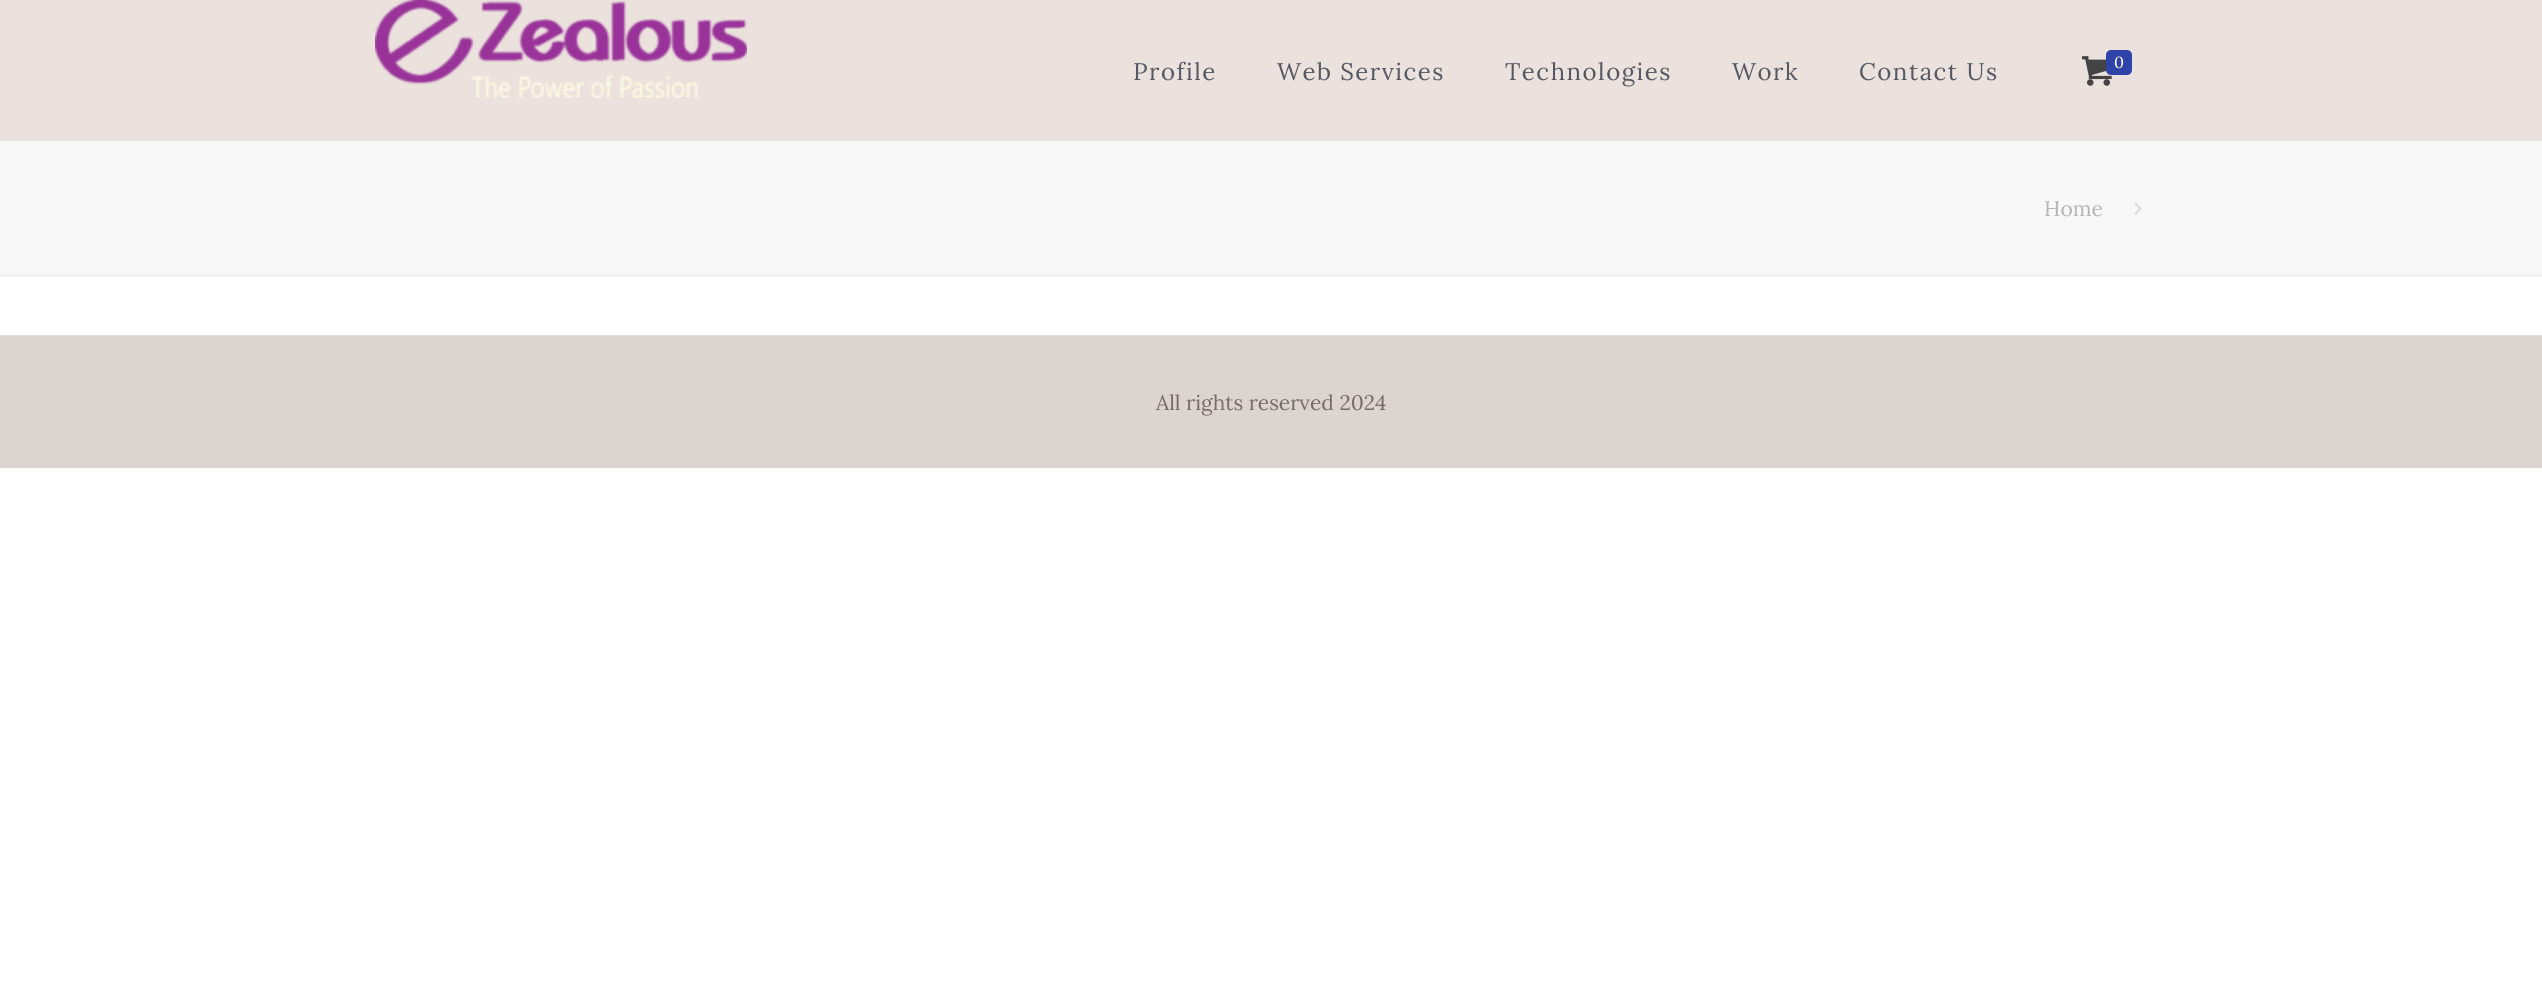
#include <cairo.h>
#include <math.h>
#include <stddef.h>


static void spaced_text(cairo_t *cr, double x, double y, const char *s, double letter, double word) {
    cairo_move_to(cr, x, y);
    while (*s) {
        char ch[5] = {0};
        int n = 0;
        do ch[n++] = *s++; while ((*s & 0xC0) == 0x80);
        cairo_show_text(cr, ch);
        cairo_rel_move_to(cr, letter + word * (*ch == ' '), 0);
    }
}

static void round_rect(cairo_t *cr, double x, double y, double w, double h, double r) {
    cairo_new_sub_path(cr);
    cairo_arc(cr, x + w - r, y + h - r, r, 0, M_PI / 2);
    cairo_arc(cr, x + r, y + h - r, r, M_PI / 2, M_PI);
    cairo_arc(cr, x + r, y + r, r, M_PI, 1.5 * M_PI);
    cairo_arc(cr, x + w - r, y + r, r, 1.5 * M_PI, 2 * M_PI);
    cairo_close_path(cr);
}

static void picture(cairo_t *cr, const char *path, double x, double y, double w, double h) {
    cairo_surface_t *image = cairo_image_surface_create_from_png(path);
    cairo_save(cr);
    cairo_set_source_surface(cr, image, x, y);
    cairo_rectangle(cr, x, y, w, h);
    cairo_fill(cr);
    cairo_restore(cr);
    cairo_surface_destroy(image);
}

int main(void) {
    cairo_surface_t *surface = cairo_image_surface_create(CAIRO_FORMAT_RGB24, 2542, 991);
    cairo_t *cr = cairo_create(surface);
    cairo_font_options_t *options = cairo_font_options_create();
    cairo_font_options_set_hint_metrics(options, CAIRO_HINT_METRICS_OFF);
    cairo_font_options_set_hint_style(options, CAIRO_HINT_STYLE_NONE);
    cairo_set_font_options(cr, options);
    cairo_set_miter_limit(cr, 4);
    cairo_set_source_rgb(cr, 1, 1, 1);
    cairo_paint(cr);
    cairo_set_source_rgb(cr, 0.918, 0.882, 0.867);
    cairo_rectangle(cr, 0, 0, 2542, 141);
    cairo_fill(cr);
    picture(cr, "img1.png", 375, 0, 372, 98);
    cairo_select_font_face(cr, "Lora", CAIRO_FONT_SLANT_NORMAL, CAIRO_FONT_WEIGHT_NORMAL);
    cairo_set_font_size(cr, 24);
    cairo_set_source_rgb(cr, 0.333, 0.349, 0.388);
    spaced_text(cr, 1133, 80, "Profile", 1.5, 0);
    spaced_text(cr, 1277, 80, "Web Services", 1.5, 0);
    spaced_text(cr, 1505, 80, "Technologies", 1.5, 0);
    spaced_text(cr, 1732, 80, "Work", 1.5, 0);
    spaced_text(cr, 1859, 80, "Contact Us", 1.5, 0);
    picture(cr, "img2.png", 2082, 56, 30, 30);
    cairo_set_source_rgb(cr, 0.184, 0.263, 0.663);
    round_rect(cr, 2106, 50, 26, 25, 5);
    cairo_fill(cr);
    cairo_set_font_size(cr, 16);
    cairo_set_source_rgb(cr, 1, 1, 1);
    cairo_move_to(cr, 2114, 68);
    cairo_show_text(cr, "0");
    cairo_set_source_rgb(cr, 0.969, 0.969, 0.969);
    cairo_rectangle(cr, 0, 141, 2542, 134);
    cairo_fill(cr);
    cairo_set_font_size(cr, 21);
    cairo_set_source_rgb(cr, 0.706, 0.706, 0.706);
    cairo_move_to(cr, 2044, 216);
    cairo_show_text(cr, "Home");
    picture(cr, "img3.png", 2134, 202, 8, 13);
    picture(cr, "img4.png", 0, 274, 2542, 3);
    cairo_set_source_rgb(cr, 0.859, 0.831, 0.82);
    cairo_rectangle(cr, 0, 337, 2542, 131);
    cairo_fill(cr);
    cairo_set_source_rgb(cr, 0.875, 0.847, 0.839);
    cairo_rectangle(cr, 0, 335, 2542, 2);
    cairo_fill(cr);
    cairo_set_source_rgb(cr, 0.463, 0.427, 0.412);
    cairo_move_to(cr, 1156, 410);
    cairo_show_text(cr, "All rights reserved 2024");
    cairo_surface_write_to_png(surface, "page.png");
    cairo_font_options_destroy(options);
    cairo_destroy(cr);
    cairo_surface_destroy(surface);
    return 0;
}
